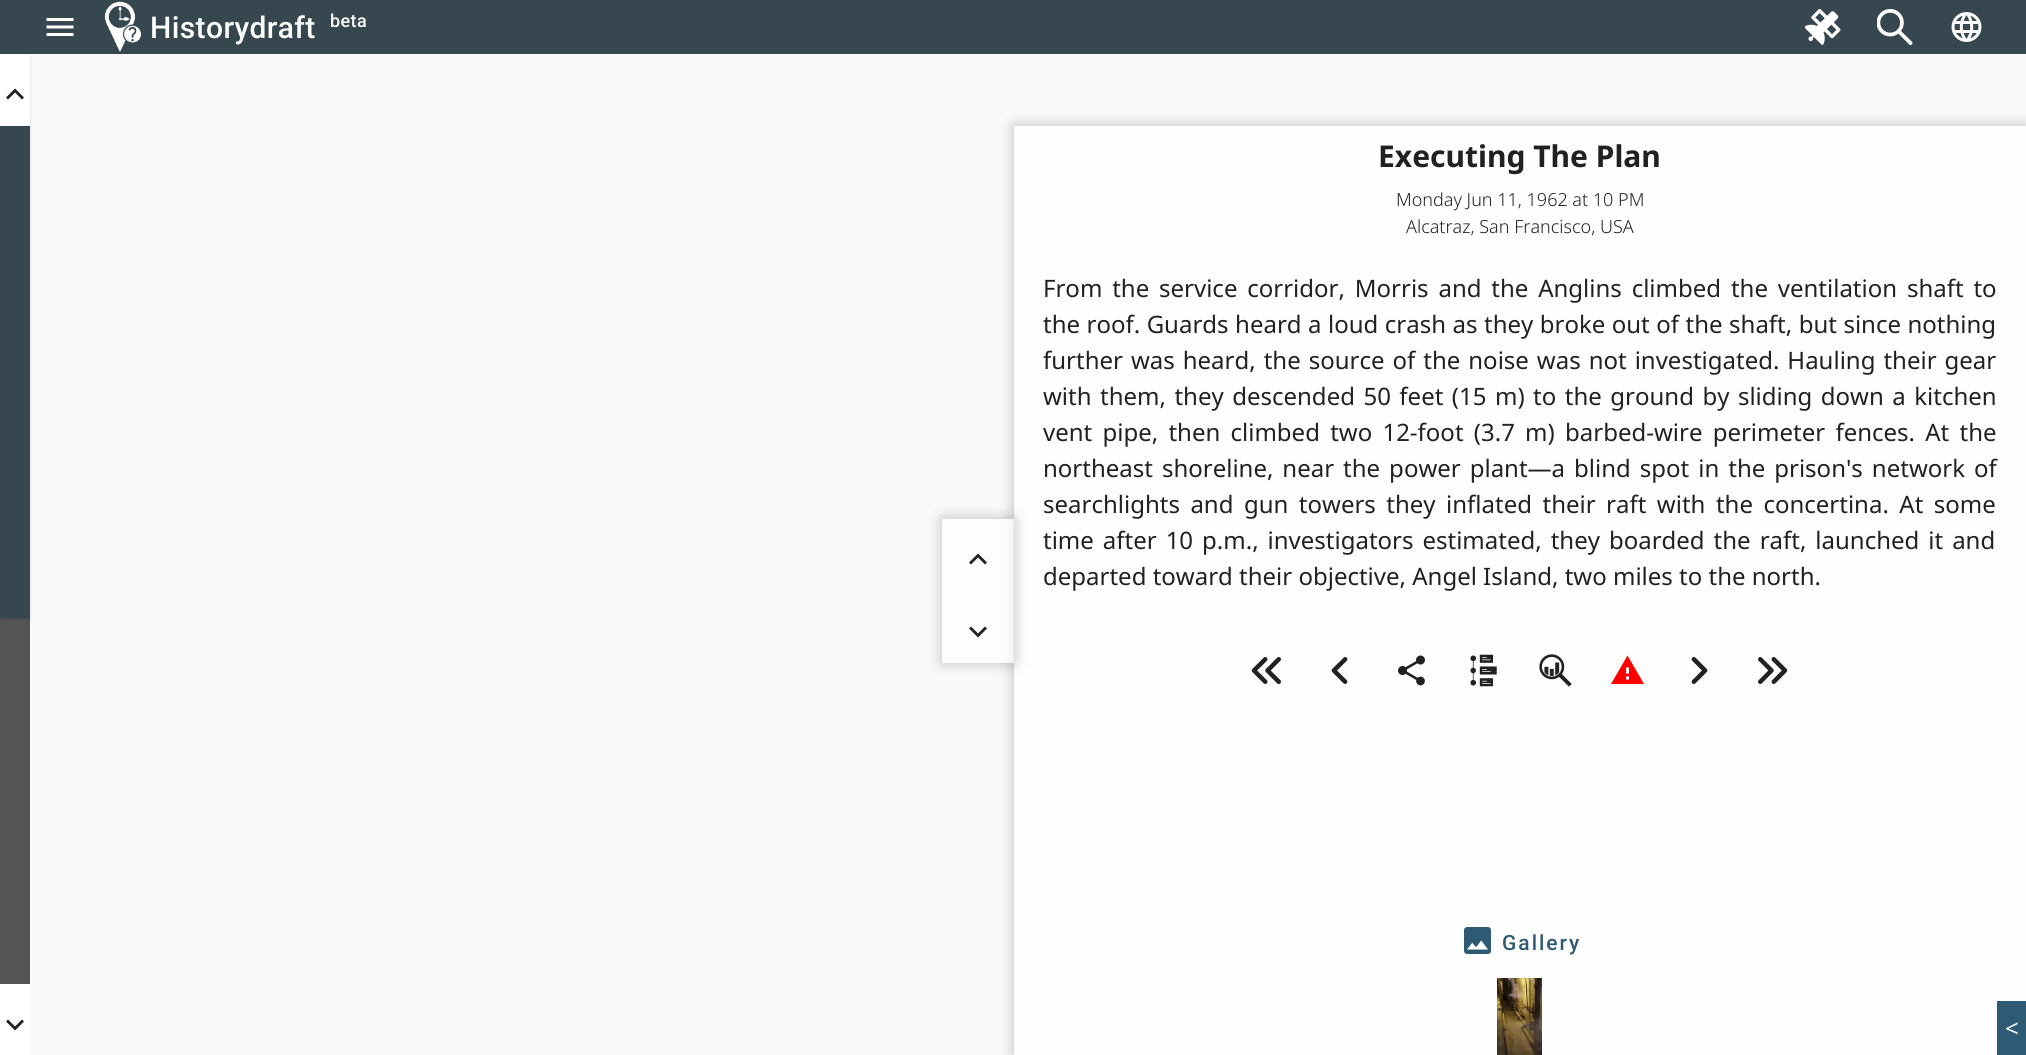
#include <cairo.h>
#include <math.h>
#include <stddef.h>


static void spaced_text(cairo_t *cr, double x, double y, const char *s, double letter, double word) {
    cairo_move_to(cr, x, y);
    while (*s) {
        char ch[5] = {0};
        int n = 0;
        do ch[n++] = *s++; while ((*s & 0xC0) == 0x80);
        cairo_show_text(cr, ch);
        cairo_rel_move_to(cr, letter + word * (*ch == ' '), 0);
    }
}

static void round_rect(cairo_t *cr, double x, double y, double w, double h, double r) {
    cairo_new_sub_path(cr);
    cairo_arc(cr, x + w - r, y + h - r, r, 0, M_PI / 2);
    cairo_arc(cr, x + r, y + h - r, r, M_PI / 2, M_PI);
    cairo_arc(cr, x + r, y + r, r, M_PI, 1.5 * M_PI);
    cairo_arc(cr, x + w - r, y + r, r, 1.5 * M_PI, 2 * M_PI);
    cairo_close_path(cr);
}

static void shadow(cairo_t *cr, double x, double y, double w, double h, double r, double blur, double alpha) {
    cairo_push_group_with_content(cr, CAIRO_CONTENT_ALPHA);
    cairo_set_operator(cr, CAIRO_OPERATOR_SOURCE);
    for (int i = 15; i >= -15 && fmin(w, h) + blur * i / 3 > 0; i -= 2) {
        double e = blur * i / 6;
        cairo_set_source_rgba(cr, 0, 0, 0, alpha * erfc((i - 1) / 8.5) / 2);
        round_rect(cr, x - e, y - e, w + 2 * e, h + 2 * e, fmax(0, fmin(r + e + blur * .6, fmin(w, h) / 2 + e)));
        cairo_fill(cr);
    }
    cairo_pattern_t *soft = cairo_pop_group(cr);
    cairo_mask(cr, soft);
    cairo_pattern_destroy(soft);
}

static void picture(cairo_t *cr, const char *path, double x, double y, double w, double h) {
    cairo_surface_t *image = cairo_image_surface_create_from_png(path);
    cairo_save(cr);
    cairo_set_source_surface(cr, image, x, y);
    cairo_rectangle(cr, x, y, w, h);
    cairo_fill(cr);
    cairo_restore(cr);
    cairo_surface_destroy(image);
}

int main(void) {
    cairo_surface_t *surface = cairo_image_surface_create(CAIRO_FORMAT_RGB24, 2026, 1055);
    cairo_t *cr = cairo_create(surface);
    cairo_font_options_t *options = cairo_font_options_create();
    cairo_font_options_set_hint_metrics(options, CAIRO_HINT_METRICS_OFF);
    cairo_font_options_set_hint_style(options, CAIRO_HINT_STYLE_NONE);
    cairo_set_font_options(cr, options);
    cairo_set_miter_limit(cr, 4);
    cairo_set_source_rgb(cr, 0.98, 0.98, 0.98);
    cairo_paint(cr);
    cairo_set_source_rgb(cr, 0.333, 0.333, 0.333);
    cairo_rectangle(cr, 0, 618, 30, 366);
    cairo_fill(cr);
    cairo_set_source_rgb(cr, 0, 0, 0);
    shadow(cr, 2, 57, 27, 561, 0, 1.5, 0.1);
    shadow(cr, 0, 56, 30, 564, 0, 2, 0.1);
    cairo_set_source_rgb(cr, 0.212, 0.278, 0.31);
    cairo_rectangle(cr, 0, 0, 2026, 54);
    cairo_fill(cr);
    picture(cr, "img1.png", 46, 18, 28, 18);
    picture(cr, "img2.png", 104, 1, 38, 51);
    cairo_select_font_face(cr, "Roboto Medium", CAIRO_FONT_SLANT_NORMAL, CAIRO_FONT_WEIGHT_NORMAL);
    cairo_set_font_size(cr, 30);
    cairo_set_source_rgb(cr, 1, 1, 1);
    spaced_text(cr, 150, 38, "Historydraft", 0.4, 0);
    cairo_set_font_size(cr, 18);
    spaced_text(cr, 330, 27, "beta", 0.4, 0);
    picture(cr, "img3.png", 1805, 9, 36, 36);
    picture(cr, "img4.png", 1877, 9, 36, 36);
    picture(cr, "img5.png", 1951, 12, 31, 30);
    cairo_set_source_rgb(cr, 0.212, 0.278, 0.31);
    cairo_rectangle(cr, 0, 126, 30, 492);
    cairo_fill(cr);
    cairo_set_source_rgb(cr, 1, 1, 1);
    cairo_rectangle(cr, 0, 54, 30, 72);
    cairo_fill(cr);
    cairo_set_source_rgb(cr, 0.129, 0.129, 0.129);
    cairo_new_path(cr);
    cairo_move_to(cr, 8, 99.5);
    cairo_line_to(cr, 6, 97.5);
    cairo_line_to(cr, 15, 88.5);
    cairo_line_to(cr, 24, 97.5);
    cairo_line_to(cr, 22, 99.5);
    cairo_line_to(cr, 15, 92.5);
    cairo_close_path(cr);
    cairo_fill(cr);
    cairo_set_source_rgb(cr, 1, 1, 1);
    cairo_rectangle(cr, 0, 984, 30, 71);
    cairo_fill(cr);
    cairo_set_source_rgb(cr, 0.129, 0.129, 0.129);
    cairo_new_path(cr);
    cairo_move_to(cr, 8, 1019.5);
    cairo_line_to(cr, 15, 1026.5);
    cairo_line_to(cr, 22, 1019.5);
    cairo_line_to(cr, 24, 1021.5);
    cairo_line_to(cr, 15, 1030.5);
    cairo_line_to(cr, 6, 1021.5);
    cairo_close_path(cr);
    cairo_fill(cr);
    cairo_set_source_rgb(cr, 0, 0, 0);
    shadow(cr, 1014, 126, 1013, 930, 0, 7.5, 0.25);
    cairo_set_source_rgb(cr, 0.996, 0.996, 0.996);
    cairo_rectangle(cr, 1014, 126, 1012, 929);
    cairo_fill(cr);
    cairo_select_font_face(cr, "Noto Sans", CAIRO_FONT_SLANT_NORMAL, CAIRO_FONT_WEIGHT_BOLD);
    cairo_set_font_size(cr, 30);
    cairo_set_source_rgb(cr, 0.129, 0.129, 0.129);
    cairo_move_to(cr, 1378, 167);
    cairo_show_text(cr, "Executing The Plan");
    cairo_select_font_face(cr, "Noto Sans Light", CAIRO_FONT_SLANT_NORMAL, CAIRO_FONT_WEIGHT_NORMAL);
    cairo_set_font_size(cr, 18);
    cairo_move_to(cr, 1396, 206);
    cairo_show_text(cr, "Monday Jun 11, 1962 at 10 PM");
    cairo_move_to(cr, 1406, 233);
    cairo_show_text(cr, "Alcatraz, San Francisco, USA");
    cairo_save(cr);
    cairo_set_fill_rule(cr, CAIRO_FILL_RULE_EVEN_ODD);
    cairo_new_path(cr);
    cairo_move_to(cr, 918, 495);
    cairo_line_to(cr, 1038, 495);
    cairo_line_to(cr, 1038, 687);
    cairo_line_to(cr, 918, 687);
    cairo_close_path(cr);
    cairo_move_to(cr, 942, 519);
    cairo_line_to(cr, 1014, 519);
    cairo_line_to(cr, 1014, 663);
    cairo_line_to(cr, 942, 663);
    cairo_close_path(cr);
    cairo_clip(cr);
    cairo_set_source_rgb(cr, 0, 0, 0);
    shadow(cr, 942, 519, 72, 144, 0, 7.5, 0.25);
    cairo_restore(cr);
    cairo_set_source_rgba(cr, 1, 1, 1, 0.67);
    cairo_rectangle(cr, 942, 519, 72, 144);
    cairo_fill(cr);
    cairo_set_source_rgb(cr, 0.129, 0.129, 0.129);
    cairo_new_path(cr);
    cairo_move_to(cr, 971, 564.5);
    cairo_line_to(cr, 969, 562.5);
    cairo_line_to(cr, 978, 553.5);
    cairo_line_to(cr, 987, 562.5);
    cairo_line_to(cr, 985, 564.5);
    cairo_line_to(cr, 978, 557.5);
    cairo_close_path(cr);
    cairo_fill(cr);
    cairo_new_path(cr);
    cairo_move_to(cr, 971, 626.5);
    cairo_line_to(cr, 978, 633.5);
    cairo_line_to(cr, 985, 626.5);
    cairo_line_to(cr, 987, 628.5);
    cairo_line_to(cr, 978, 637.5);
    cairo_line_to(cr, 969, 628.5);
    cairo_close_path(cr);
    cairo_fill(cr);
    cairo_select_font_face(cr, "Noto Sans", CAIRO_FONT_SLANT_NORMAL, CAIRO_FONT_WEIGHT_NORMAL);
    cairo_set_font_size(cr, 24);
    spaced_text(cr, 1043, 297, "From the service corridor, Morris and the Anglins climbed the ventilation shaft to", 0, 3.6);
    spaced_text(cr, 1043, 333, "the roof. Guards heard a loud crash as they broke out of the shaft, but since nothing", 0, 0.25);
    spaced_text(cr, 1043, 369, "further was heard, the source of the noise was not investigated. Hauling their gear", 0, 1.75);
    spaced_text(cr, 1043, 405, "with them, they descended 50 feet (15 m) to the ground by sliding down a kitchen", 0, 2.25);
    spaced_text(cr, 1043, 441, "vent pipe, then climbed two 12-foot (3.7 m) barbed-wire perimeter fences. At the", 0, 4);
    spaced_text(cr, 1043, 477, "northeast shoreline, near the power plant—a blind spot in the prison's network of", 0, 2.75);
    spaced_text(cr, 1043, 513, "searchlights and gun towers they inflated their raft with the concertina. At some", 0, 4.25);
    spaced_text(cr, 1043, 549, "time after 10 p.m., investigators estimated, they boarded the raft, launched it and", 0, 2.75);
    cairo_move_to(cr, 1043, 585);
    cairo_show_text(cr, "departed toward their objective, Angel Island, two miles to the north.");
    picture(cr, "img6.png", 1251, 657, 30, 27);
    picture(cr, "img7.png", 1331, 657, 17, 27);
    picture(cr, "img8.png", 1398, 655, 27, 31);
    picture(cr, "img9.png", 1470, 654, 27, 33);
    picture(cr, "img10.png", 1539, 654, 33, 33);
    cairo_set_source_rgb(cr, 1, 0, 0);
    cairo_new_path(cr);
    cairo_move_to(cr, 1629, 673.5);
    cairo_line_to(cr, 1629, 667.5);
    cairo_line_to(cr, 1626, 667.5);
    cairo_line_to(cr, 1626, 673.5);
    cairo_close_path(cr);
    cairo_move_to(cr, 1629, 679.5);
    cairo_line_to(cr, 1629, 676.5);
    cairo_line_to(cr, 1626, 676.5);
    cairo_line_to(cr, 1626, 679.5);
    cairo_close_path(cr);
    cairo_move_to(cr, 1611, 684);
    cairo_line_to(cr, 1627.5, 655.5);
    cairo_line_to(cr, 1644, 684);
    cairo_close_path(cr);
    cairo_fill(cr);
    picture(cr, "img11.png", 1691, 657, 17, 27);
    picture(cr, "img12.png", 1758, 657, 30, 27);
    picture(cr, "img13.png", 1464, 927, 27, 27);
    cairo_select_font_face(cr, "Roboto Medium", CAIRO_FONT_SLANT_NORMAL, CAIRO_FONT_WEIGHT_NORMAL);
    cairo_set_font_size(cr, 21);
    cairo_set_source_rgb(cr, 0.18, 0.353, 0.451);
    spaced_text(cr, 1502, 950, "Gallery", 2, 0);
    picture(cr, "img14.png", 1497, 978, 45, 77);
    cairo_rectangle(cr, 1997, 1001, 29, 54);
    cairo_fill(cr);
    cairo_select_font_face(cr, "Noto Sans", CAIRO_FONT_SLANT_NORMAL, CAIRO_FONT_WEIGHT_NORMAL);
    cairo_set_font_size(cr, 24);
    cairo_set_source_rgb(cr, 1, 1, 1);
    cairo_move_to(cr, 2005, 1037);
    cairo_show_text(cr, "<");
    cairo_surface_write_to_png(surface, "page.png");
    cairo_font_options_destroy(options);
    cairo_destroy(cr);
    cairo_surface_destroy(surface);
    return 0;
}
